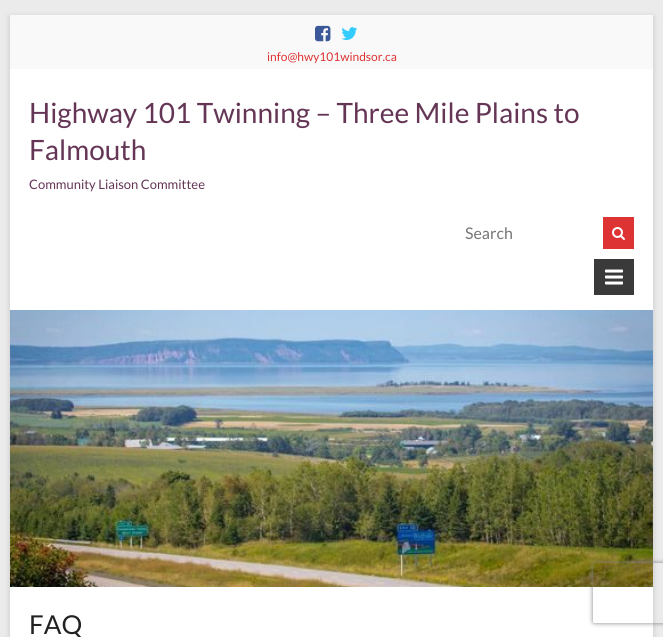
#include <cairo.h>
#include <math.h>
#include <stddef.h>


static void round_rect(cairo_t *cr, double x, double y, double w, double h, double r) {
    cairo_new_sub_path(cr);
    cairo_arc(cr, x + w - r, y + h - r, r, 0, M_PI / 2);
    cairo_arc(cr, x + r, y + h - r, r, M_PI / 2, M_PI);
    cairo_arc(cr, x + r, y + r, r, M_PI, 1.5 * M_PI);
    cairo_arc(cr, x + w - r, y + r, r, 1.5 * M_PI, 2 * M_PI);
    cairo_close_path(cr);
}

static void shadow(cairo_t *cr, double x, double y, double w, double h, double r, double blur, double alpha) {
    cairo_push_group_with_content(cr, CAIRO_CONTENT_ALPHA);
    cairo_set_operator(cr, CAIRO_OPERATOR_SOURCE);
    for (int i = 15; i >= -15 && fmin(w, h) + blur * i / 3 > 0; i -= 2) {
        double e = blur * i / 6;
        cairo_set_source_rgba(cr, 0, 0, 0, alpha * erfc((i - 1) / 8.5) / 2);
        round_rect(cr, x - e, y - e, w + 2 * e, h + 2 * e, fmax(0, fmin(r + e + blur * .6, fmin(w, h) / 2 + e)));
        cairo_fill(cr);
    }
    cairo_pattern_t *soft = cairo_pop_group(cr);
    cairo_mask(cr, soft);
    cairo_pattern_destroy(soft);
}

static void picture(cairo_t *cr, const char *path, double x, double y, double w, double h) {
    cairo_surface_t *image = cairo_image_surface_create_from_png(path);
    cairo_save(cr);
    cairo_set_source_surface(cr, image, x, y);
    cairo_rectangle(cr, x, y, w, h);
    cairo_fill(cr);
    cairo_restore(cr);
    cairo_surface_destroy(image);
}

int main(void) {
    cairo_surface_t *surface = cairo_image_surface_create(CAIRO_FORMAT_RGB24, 663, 637);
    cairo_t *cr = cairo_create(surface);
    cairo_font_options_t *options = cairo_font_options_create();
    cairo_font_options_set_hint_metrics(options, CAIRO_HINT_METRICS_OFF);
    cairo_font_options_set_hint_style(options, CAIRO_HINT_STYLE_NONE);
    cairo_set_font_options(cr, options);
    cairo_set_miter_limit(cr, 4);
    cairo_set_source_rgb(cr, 0.918, 0.918, 0.918);
    cairo_paint(cr);
    cairo_set_source_rgb(cr, 0.392, 0.392, 0.392);
    shadow(cr, 10, 17, 643, 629, 0, 3, 0.3);
    cairo_set_source_rgb(cr, 1, 1, 1);
    cairo_rectangle(cr, 10, 69, 643, 568);
    cairo_fill(cr);
    cairo_set_source_rgb(cr, 0.973, 0.973, 0.973);
    cairo_rectangle(cr, 10, 15, 643, 54);
    cairo_fill(cr);
    picture(cr, "img1.png", 315, 25, 16, 17);
    picture(cr, "img2.png", 341, 27, 17, 13);
    cairo_select_font_face(cr, "Lato", CAIRO_FONT_SLANT_NORMAL, CAIRO_FONT_WEIGHT_NORMAL);
    cairo_set_font_size(cr, 12);
    cairo_set_source_rgb(cr, 0.867, 0.2, 0.2);
    cairo_move_to(cr, 267, 61);
    cairo_show_text(cr, "info@hwy101windsor.ca");
    cairo_set_font_size(cr, 28);
    cairo_set_source_rgb(cr, 0.396, 0.208, 0.333);
    cairo_move_to(cr, 29, 123);
    cairo_show_text(cr, "Highway 101 Twinning – Three Mile Plains to");
    cairo_move_to(cr, 29, 160);
    cairo_show_text(cr, "Falmouth");
    cairo_set_font_size(cr, 13);
    cairo_move_to(cr, 29, 189);
    cairo_show_text(cr, "Community Liaison Committee");
    cairo_set_font_size(cr, 16);
    cairo_set_source_rgb(cr, 0.459, 0.459, 0.459);
    cairo_move_to(cr, 465, 239);
    cairo_show_text(cr, "Search");
    cairo_set_source_rgb(cr, 0.867, 0.2, 0.2);
    cairo_rectangle(cr, 603, 217, 31, 32);
    cairo_fill(cr);
    picture(cr, "img3.png", 612, 227, 13, 13);
    cairo_set_source_rgb(cr, 0.227, 0.227, 0.227);
    cairo_rectangle(cr, 594, 259, 40, 36);
    cairo_fill(cr);
    picture(cr, "img4.png", 605, 269, 18, 16);
    picture(cr, "img5.png", 10, 310, 643, 277);
    cairo_set_font_size(cr, 26);
    cairo_set_source_rgb(cr, 0.133, 0.133, 0.133);
    cairo_move_to(cr, 29, 634);
    cairo_show_text(cr, "FAQ");
    cairo_save(cr);
    cairo_set_fill_rule(cr, CAIRO_FILL_RULE_EVEN_ODD);
    cairo_new_path(cr);
    cairo_move_to(cr, 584, 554);
    cairo_line_to(cr, 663, 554);
    cairo_line_to(cr, 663, 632);
    cairo_line_to(cr, 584, 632);
    cairo_close_path(cr);
    cairo_move_to(cr, 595, 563);
    cairo_line_to(cr, 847, 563);
    cairo_curve_to(cr, 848, 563, 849, 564, 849, 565);
    cairo_line_to(cr, 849, 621);
    cairo_curve_to(cr, 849, 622, 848, 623, 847, 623);
    cairo_line_to(cr, 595, 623);
    cairo_curve_to(cr, 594, 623, 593, 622, 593, 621);
    cairo_line_to(cr, 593, 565);
    cairo_curve_to(cr, 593, 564, 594, 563, 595, 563);
    cairo_close_path(cr);
    cairo_clip(cr);
    cairo_set_source_rgb(cr, 0.502, 0.502, 0.502);
    shadow(cr, 593, 563, 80, 60, 2, 2.5, 1);
    cairo_restore(cr);
    cairo_surface_write_to_png(surface, "page.png");
    cairo_font_options_destroy(options);
    cairo_destroy(cr);
    cairo_surface_destroy(surface);
    return 0;
}
